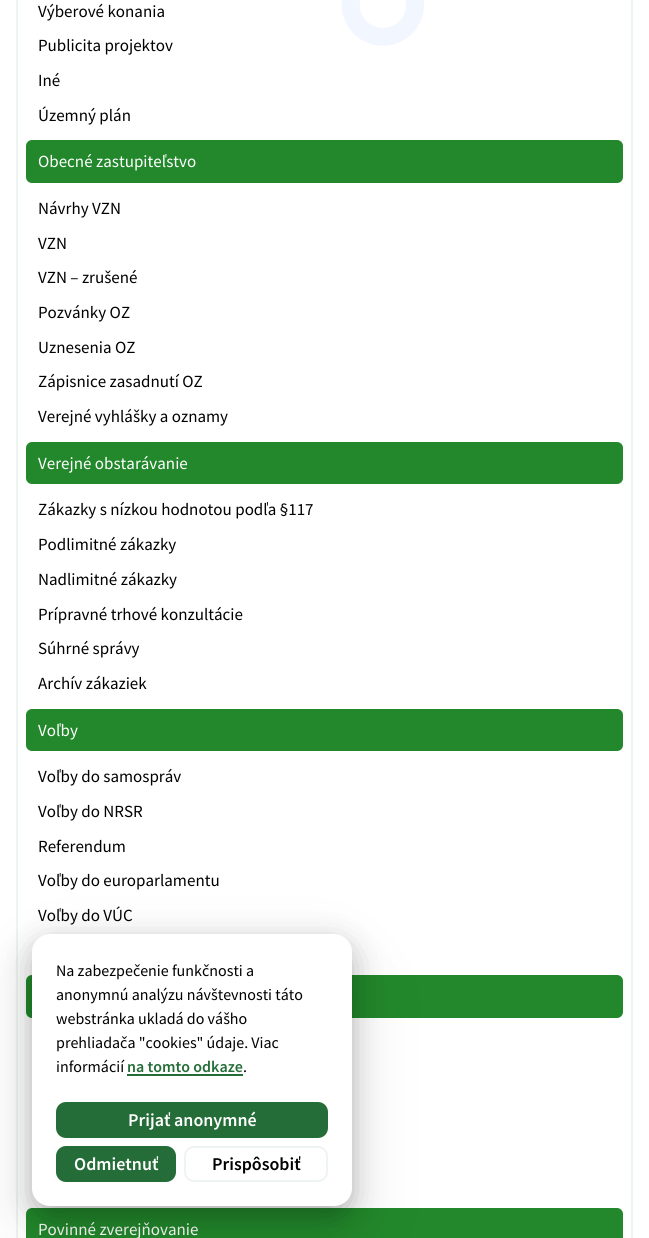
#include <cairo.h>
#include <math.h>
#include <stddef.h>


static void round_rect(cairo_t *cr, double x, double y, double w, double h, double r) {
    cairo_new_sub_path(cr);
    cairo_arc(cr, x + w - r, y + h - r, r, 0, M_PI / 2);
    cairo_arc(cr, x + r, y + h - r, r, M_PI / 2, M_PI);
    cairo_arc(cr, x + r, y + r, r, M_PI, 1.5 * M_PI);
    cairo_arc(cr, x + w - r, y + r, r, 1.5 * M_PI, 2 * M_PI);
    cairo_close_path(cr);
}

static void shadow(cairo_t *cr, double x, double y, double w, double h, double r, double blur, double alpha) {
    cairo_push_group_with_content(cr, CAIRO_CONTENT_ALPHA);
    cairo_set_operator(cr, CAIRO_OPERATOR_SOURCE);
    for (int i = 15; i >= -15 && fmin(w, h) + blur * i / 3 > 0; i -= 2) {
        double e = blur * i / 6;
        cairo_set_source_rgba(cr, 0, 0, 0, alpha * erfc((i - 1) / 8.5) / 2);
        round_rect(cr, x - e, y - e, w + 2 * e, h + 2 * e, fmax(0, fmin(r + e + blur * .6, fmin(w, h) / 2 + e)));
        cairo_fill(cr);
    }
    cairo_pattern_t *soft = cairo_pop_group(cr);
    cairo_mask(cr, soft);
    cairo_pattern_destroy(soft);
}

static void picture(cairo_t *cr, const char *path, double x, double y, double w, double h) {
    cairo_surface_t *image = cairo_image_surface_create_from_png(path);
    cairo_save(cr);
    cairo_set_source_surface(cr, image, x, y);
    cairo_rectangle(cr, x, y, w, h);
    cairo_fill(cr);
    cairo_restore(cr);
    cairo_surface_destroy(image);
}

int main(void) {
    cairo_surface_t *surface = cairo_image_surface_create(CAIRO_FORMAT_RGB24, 649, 1238);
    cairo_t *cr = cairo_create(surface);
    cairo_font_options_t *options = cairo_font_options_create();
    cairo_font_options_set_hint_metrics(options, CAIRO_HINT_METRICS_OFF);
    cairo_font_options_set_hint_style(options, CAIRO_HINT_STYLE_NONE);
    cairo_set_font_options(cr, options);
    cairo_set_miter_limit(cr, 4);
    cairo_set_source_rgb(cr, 1, 1, 1);
    cairo_paint(cr);
    picture(cr, "img1.png", 341, 0, 83, 46);
    cairo_rectangle(cr, 17, -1, 615, 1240);
    cairo_set_source_rgb(cr, 0.933, 0.957, 0.937);
    cairo_stroke(cr);
    cairo_select_font_face(cr, "Source Sans Pro", CAIRO_FONT_SLANT_NORMAL, CAIRO_FONT_WEIGHT_NORMAL);
    cairo_set_font_size(cr, 17);
    cairo_set_source_rgb(cr, 0, 0, 0);
    cairo_move_to(cr, 38, 17);
    cairo_show_text(cr, "Výberové konania");
    cairo_move_to(cr, 38, 51);
    cairo_show_text(cr, "Publicita projektov");
    cairo_move_to(cr, 38, 86);
    cairo_show_text(cr, "Iné");
    cairo_move_to(cr, 38, 121);
    cairo_show_text(cr, "Územný plán");
    cairo_set_source_rgb(cr, 0.133, 0.533, 0.169);
    round_rect(cr, 26, 140, 597, 43, 6);
    cairo_fill(cr);
    cairo_set_source_rgb(cr, 1, 1, 1);
    cairo_move_to(cr, 38, 167);
    cairo_show_text(cr, "Obecné zastupiteľstvo");
    cairo_set_source_rgb(cr, 0, 0, 0);
    cairo_move_to(cr, 38, 214);
    cairo_show_text(cr, "Návrhy VZN");
    cairo_move_to(cr, 38, 249);
    cairo_show_text(cr, "VZN");
    cairo_move_to(cr, 38, 283);
    cairo_show_text(cr, "VZN – zrušené");
    cairo_move_to(cr, 38, 318);
    cairo_show_text(cr, "Pozvánky OZ");
    cairo_move_to(cr, 38, 353);
    cairo_show_text(cr, "Uznesenia OZ");
    cairo_move_to(cr, 38, 387);
    cairo_show_text(cr, "Zápisnice zasadnutí OZ");
    cairo_move_to(cr, 38, 422);
    cairo_show_text(cr, "Verejné vyhlášky a oznamy");
    cairo_set_source_rgb(cr, 0.133, 0.533, 0.169);
    round_rect(cr, 26, 442, 597, 42, 6);
    cairo_fill(cr);
    cairo_set_source_rgb(cr, 1, 1, 1);
    cairo_move_to(cr, 38, 469);
    cairo_show_text(cr, "Verejné obstarávanie");
    cairo_set_source_rgb(cr, 0, 0, 0);
    cairo_move_to(cr, 38, 515);
    cairo_show_text(cr, "Zákazky s nízkou hodnotou podľa §117");
    cairo_move_to(cr, 38, 550);
    cairo_show_text(cr, "Podlimitné zákazky");
    cairo_move_to(cr, 38, 585);
    cairo_show_text(cr, "Nadlimitné zákazky");
    cairo_move_to(cr, 38, 620);
    cairo_show_text(cr, "Prípravné trhové konzultácie");
    cairo_move_to(cr, 38, 654);
    cairo_show_text(cr, "Súhrné správy");
    cairo_move_to(cr, 38, 689);
    cairo_show_text(cr, "Archív zákaziek");
    cairo_set_source_rgb(cr, 0.133, 0.533, 0.169);
    round_rect(cr, 26, 709, 597, 42, 6);
    cairo_fill(cr);
    cairo_set_source_rgb(cr, 1, 1, 1);
    cairo_move_to(cr, 38, 736);
    cairo_show_text(cr, "Voľby");
    cairo_set_source_rgb(cr, 0, 0, 0);
    cairo_move_to(cr, 38, 782);
    cairo_show_text(cr, "Voľby do samospráv");
    cairo_move_to(cr, 38, 817);
    cairo_show_text(cr, "Voľby do NRSR");
    cairo_move_to(cr, 38, 852);
    cairo_show_text(cr, "Referendum");
    cairo_move_to(cr, 38, 886);
    cairo_show_text(cr, "Voľby do europarlamentu");
    cairo_move_to(cr, 38, 921);
    cairo_show_text(cr, "Voľby do VÚC");
    cairo_set_source_rgb(cr, 0.133, 0.533, 0.169);
    round_rect(cr, 26, 975, 597, 43, 6);
    cairo_fill(cr);
    round_rect(cr, 26, 1208, 597, 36, 6);
    cairo_fill(cr);
    cairo_set_source_rgb(cr, 1, 1, 1);
    cairo_move_to(cr, 38, 1235);
    cairo_show_text(cr, "Povinné zverejňovanie");
    cairo_set_source_rgb(cr, 0, 0, 0);
    shadow(cr, 32, 964, 320, 272, 18, 45, 0.05);
    shadow(cr, 32, 954, 320, 272, 18, 30, 0.05);
    shadow(cr, 32, 944, 320, 272, 18, 15, 0.25);
    cairo_set_source_rgb(cr, 1, 1, 1);
    round_rect(cr, 32, 934, 320, 272, 18);
    cairo_fill(cr);
    cairo_set_font_size(cr, 16);
    cairo_set_source_rgb(cr, 0, 0, 0);
    cairo_move_to(cr, 56, 976);
    cairo_show_text(cr, "Na zabezpečenie funkčnosti a");
    cairo_move_to(cr, 56, 1000);
    cairo_show_text(cr, "anonymnú analýzu návštevnosti táto");
    cairo_move_to(cr, 56, 1024);
    cairo_show_text(cr, "webstránka ukladá do vášho");
    cairo_move_to(cr, 56, 1048);
    cairo_show_text(cr, "prehliadača \"cookies\" údaje. Viac");
    cairo_move_to(cr, 56, 1072);
    cairo_show_text(cr, "informácií");
    cairo_select_font_face(cr, "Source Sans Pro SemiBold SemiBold", CAIRO_FONT_SLANT_NORMAL, CAIRO_FONT_WEIGHT_NORMAL);
    cairo_set_source_rgb(cr, 0.145, 0.427, 0.22);
    cairo_move_to(cr, 127, 1072);
    cairo_show_text(cr, "na tomto odkaze");
    cairo_rectangle(cr, 127, 1074, 116, 2);
    cairo_fill(cr);
    cairo_select_font_face(cr, "Source Sans Pro", CAIRO_FONT_SLANT_NORMAL, CAIRO_FONT_WEIGHT_NORMAL);
    cairo_set_source_rgb(cr, 0, 0, 0);
    cairo_move_to(cr, 243, 1072);
    cairo_show_text(cr, ".");
    cairo_set_source_rgb(cr, 0.145, 0.427, 0.22);
    round_rect(cr, 57, 1103, 270, 34, 9);
    cairo_fill_preserve(cr);
    cairo_stroke(cr);
    cairo_select_font_face(cr, "Source Sans Pro SemiBold SemiBold", CAIRO_FONT_SLANT_NORMAL, CAIRO_FONT_WEIGHT_NORMAL);
    cairo_set_font_size(cr, 18);
    cairo_set_source_rgb(cr, 1, 1, 1);
    cairo_move_to(cr, 128, 1126);
    cairo_show_text(cr, "Prijať anonymné");
    cairo_set_source_rgb(cr, 0.145, 0.427, 0.22);
    round_rect(cr, 57, 1147, 118, 34, 9);
    cairo_fill_preserve(cr);
    cairo_stroke(cr);
    cairo_set_source_rgb(cr, 1, 1, 1);
    cairo_move_to(cr, 74, 1170);
    cairo_show_text(cr, "Odmietnuť");
    round_rect(cr, 185, 1147, 142, 34, 9);
    cairo_set_source_rgb(cr, 0.933, 0.957, 0.937);
    cairo_stroke(cr);
    cairo_set_source_rgb(cr, 0, 0, 0);
    cairo_move_to(cr, 212, 1170);
    cairo_show_text(cr, "Prispôsobiť");
    cairo_surface_write_to_png(surface, "page.png");
    cairo_font_options_destroy(options);
    cairo_destroy(cr);
    cairo_surface_destroy(surface);
    return 0;
}
